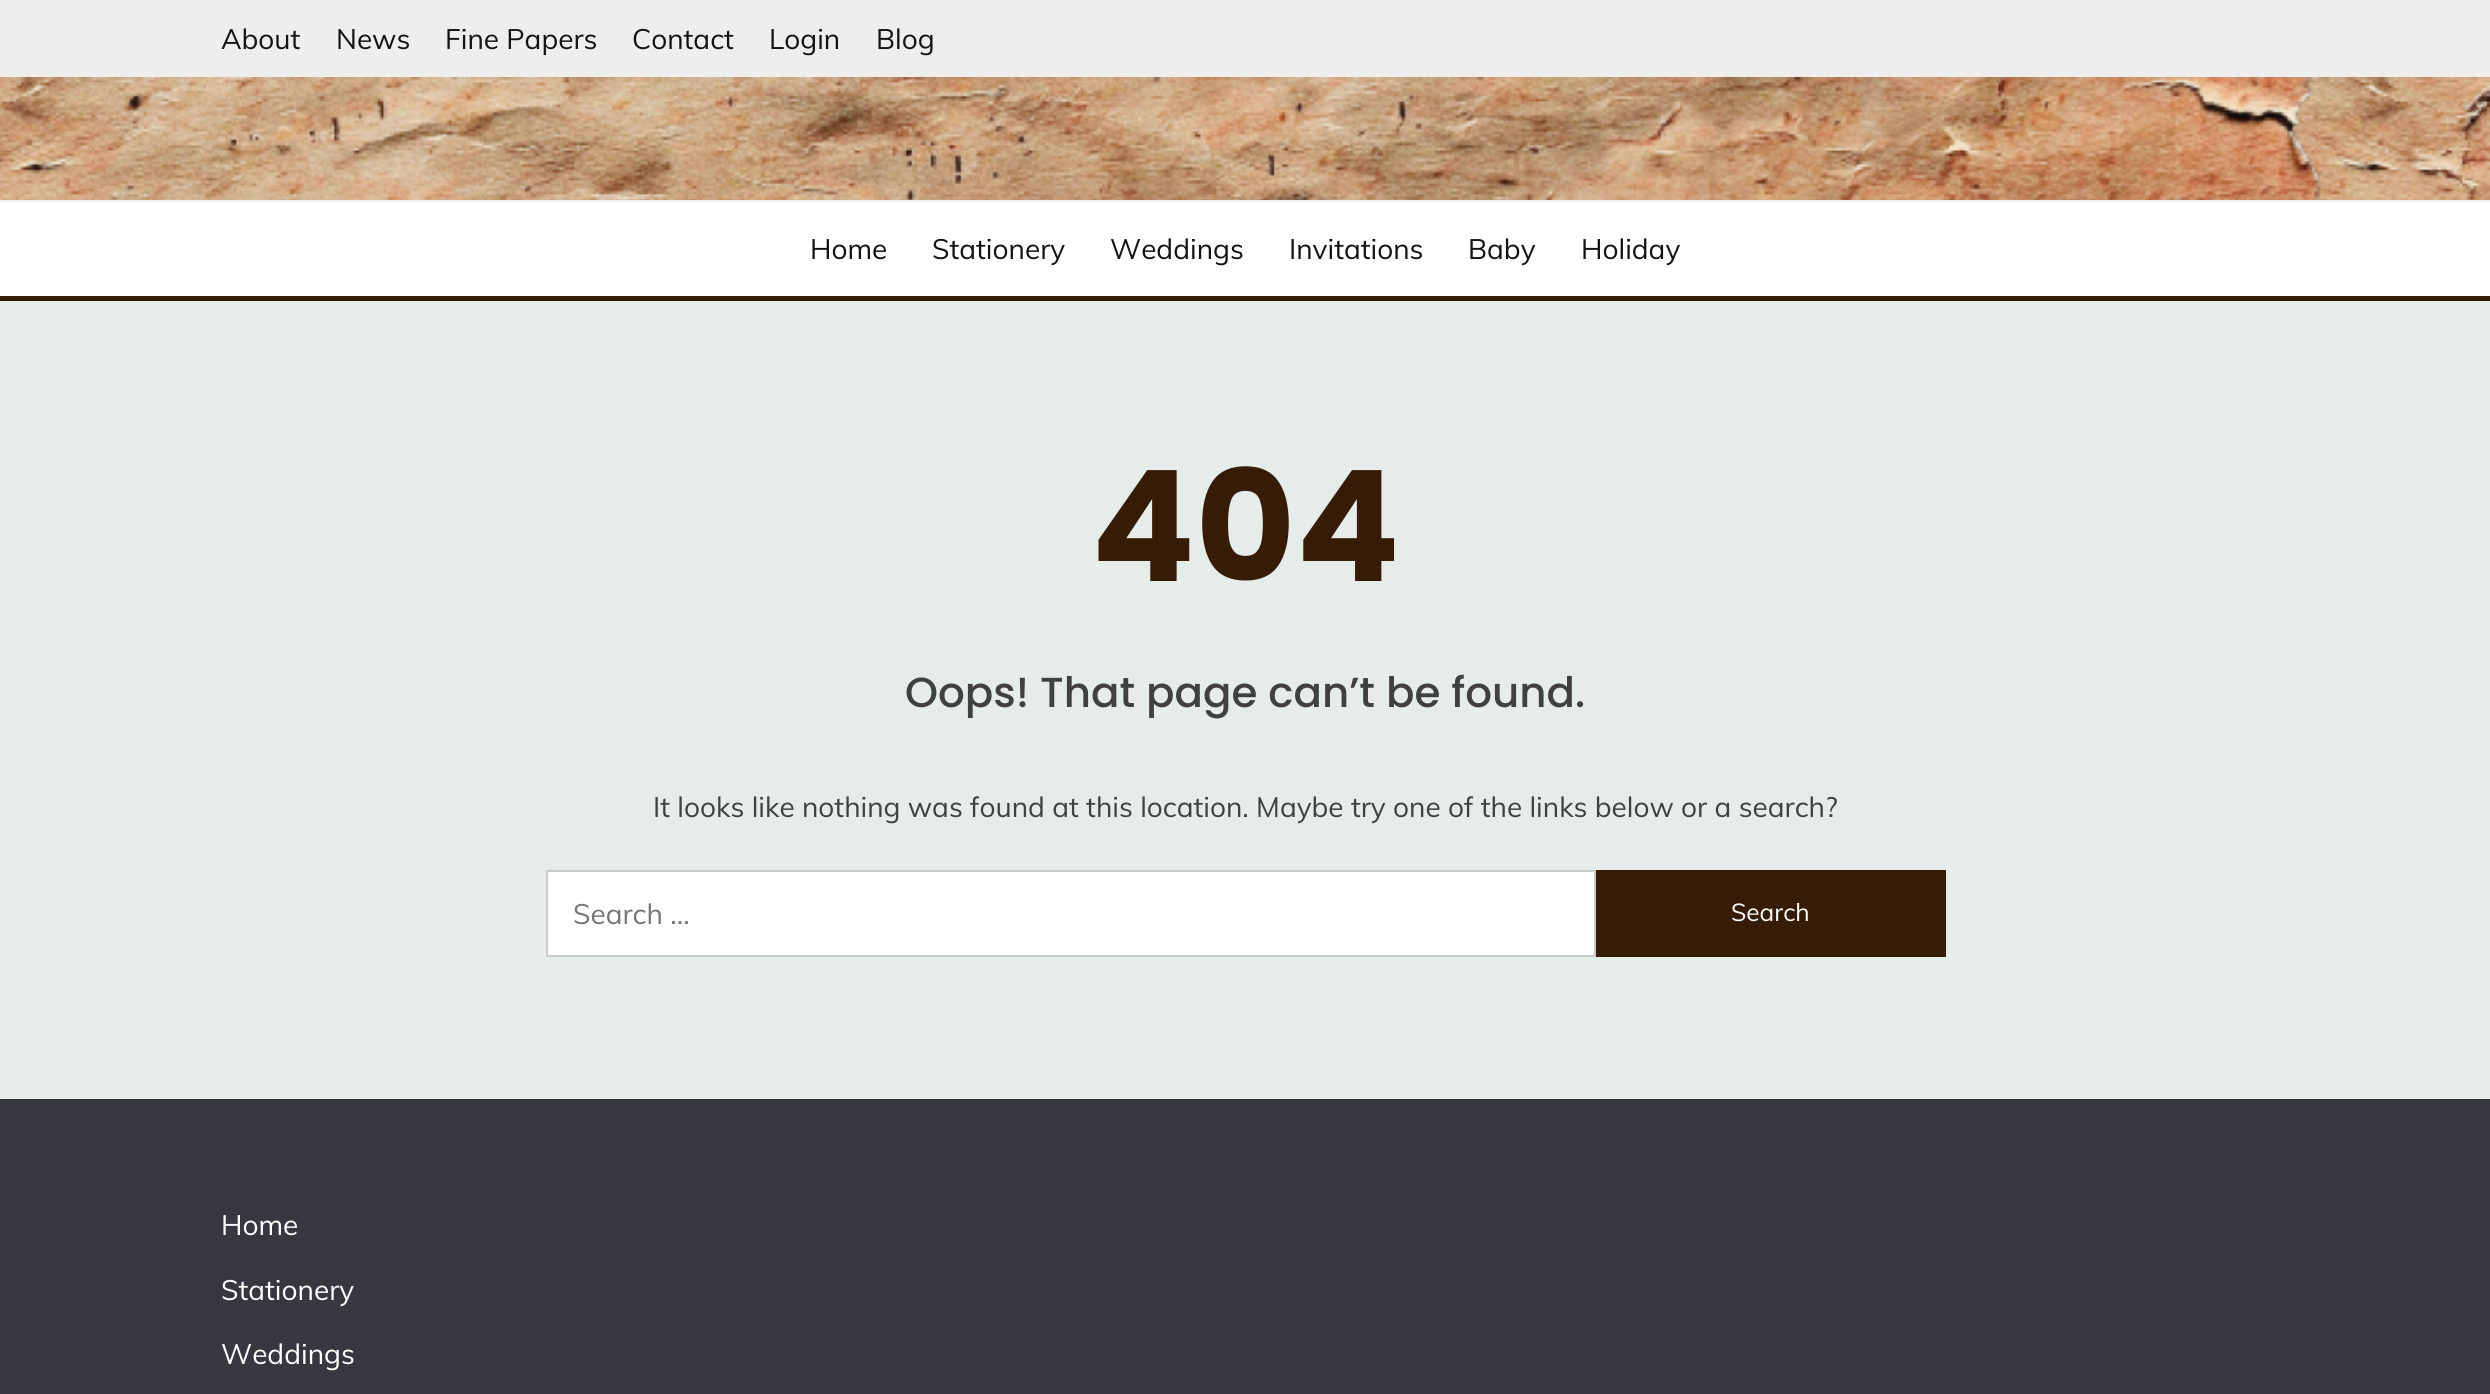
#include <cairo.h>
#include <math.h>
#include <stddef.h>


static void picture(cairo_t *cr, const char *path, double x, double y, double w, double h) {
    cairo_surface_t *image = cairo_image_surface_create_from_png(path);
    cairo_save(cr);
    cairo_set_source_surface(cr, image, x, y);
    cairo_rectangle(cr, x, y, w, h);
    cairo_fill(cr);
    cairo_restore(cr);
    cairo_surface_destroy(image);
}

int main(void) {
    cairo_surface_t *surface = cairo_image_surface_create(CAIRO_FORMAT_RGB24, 2490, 1394);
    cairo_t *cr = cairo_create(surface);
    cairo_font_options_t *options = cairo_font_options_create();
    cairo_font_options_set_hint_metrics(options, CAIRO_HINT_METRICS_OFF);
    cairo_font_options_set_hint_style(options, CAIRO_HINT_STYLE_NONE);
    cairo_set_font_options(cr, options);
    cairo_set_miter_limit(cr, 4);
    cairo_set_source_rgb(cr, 0.898, 0.925, 0.914);
    cairo_paint(cr);
    cairo_set_source_rgb(cr, 1, 1, 1);
    cairo_rectangle(cr, 0, 202, 2490, 94);
    cairo_fill(cr);
    cairo_set_source_rgb(cr, 0.933, 0.933, 0.933);
    cairo_rectangle(cr, 0, 0, 2490, 77);
    cairo_fill(cr);
    cairo_select_font_face(cr, "Muli", CAIRO_FONT_SLANT_NORMAL, CAIRO_FONT_WEIGHT_NORMAL);
    cairo_set_font_size(cr, 28);
    cairo_set_source_rgb(cr, 0.078, 0.078, 0.075);
    cairo_move_to(cr, 221, 49);
    cairo_show_text(cr, "About");
    cairo_move_to(cr, 336, 49);
    cairo_show_text(cr, "News");
    cairo_move_to(cr, 445, 49);
    cairo_show_text(cr, "Fine Papers");
    cairo_move_to(cr, 632, 49);
    cairo_show_text(cr, "Contact");
    cairo_move_to(cr, 769, 49);
    cairo_show_text(cr, "Login");
    cairo_move_to(cr, 876, 49);
    cairo_show_text(cr, "Blog");
    picture(cr, "img1.png", 0, 77, 2490, 123);
    cairo_set_source_rgb(cr, 0.933, 0.933, 0.933);
    cairo_rectangle(cr, 0, 200, 2490, 2);
    cairo_fill(cr);
    cairo_set_source_rgb(cr, 0.212, 0.106, 0.024);
    cairo_rectangle(cr, 0, 296, 2490, 5);
    cairo_fill(cr);
    cairo_set_source_rgb(cr, 0.078, 0.078, 0.075);
    cairo_move_to(cr, 810, 259);
    cairo_show_text(cr, "Home");
    cairo_move_to(cr, 932, 259);
    cairo_show_text(cr, "Stationery");
    cairo_move_to(cr, 1110, 259);
    cairo_show_text(cr, "Weddings");
    cairo_move_to(cr, 1289, 259);
    cairo_show_text(cr, "Invitations");
    cairo_move_to(cr, 1468, 259);
    cairo_show_text(cr, "Baby");
    cairo_move_to(cr, 1581, 259);
    cairo_show_text(cr, "Holiday");
    cairo_select_font_face(cr, "Poppins", CAIRO_FONT_SLANT_NORMAL, CAIRO_FONT_WEIGHT_BOLD);
    cairo_set_font_size(cr, 154);
    cairo_set_source_rgb(cr, 0.212, 0.106, 0.024);
    cairo_move_to(cr, 1091, 581);
    cairo_show_text(cr, "404");
    cairo_select_font_face(cr, "Poppins Medium", CAIRO_FONT_SLANT_NORMAL, CAIRO_FONT_WEIGHT_NORMAL);
    cairo_set_font_size(cr, 42);
    cairo_set_source_rgb(cr, 0.251, 0.251, 0.251);
    cairo_move_to(cr, 905, 707);
    cairo_show_text(cr, "Oops! That page can’t be found.");
    cairo_select_font_face(cr, "Muli", CAIRO_FONT_SLANT_NORMAL, CAIRO_FONT_WEIGHT_NORMAL);
    cairo_set_font_size(cr, 28);
    cairo_move_to(cr, 653, 817);
    cairo_show_text(cr, "It looks like nothing was found at this location. Maybe try one of the links below or a search?");
    cairo_set_source_rgb(cr, 1, 1, 1);
    cairo_rectangle(cr, 547, 871, 1048, 85);
    cairo_fill_preserve(cr);
    cairo_set_source_rgb(cr, 0.8, 0.8, 0.8);
    cairo_stroke(cr);
    cairo_set_source_rgb(cr, 0.459, 0.459, 0.459);
    cairo_move_to(cr, 573, 924);
    cairo_show_text(cr, "Search …");
    cairo_set_source_rgb(cr, 0.212, 0.106, 0.024);
    cairo_rectangle(cr, 1596, 870, 350, 87);
    cairo_fill(cr);
    cairo_set_font_size(cr, 24.5);
    cairo_set_source_rgb(cr, 1, 1, 1);
    cairo_move_to(cr, 1731, 921);
    cairo_show_text(cr, "Search");
    cairo_set_source_rgb(cr, 0.216, 0.216, 0.247);
    cairo_rectangle(cr, 0, 1099, 2490, 295);
    cairo_fill(cr);
    cairo_set_font_size(cr, 28);
    cairo_set_source_rgb(cr, 1, 1, 1);
    cairo_move_to(cr, 221, 1235);
    cairo_show_text(cr, "Home");
    cairo_move_to(cr, 221, 1300);
    cairo_show_text(cr, "Stationery");
    cairo_move_to(cr, 221, 1364);
    cairo_show_text(cr, "Weddings");
    cairo_surface_write_to_png(surface, "page.png");
    cairo_font_options_destroy(options);
    cairo_destroy(cr);
    cairo_surface_destroy(surface);
    return 0;
}
